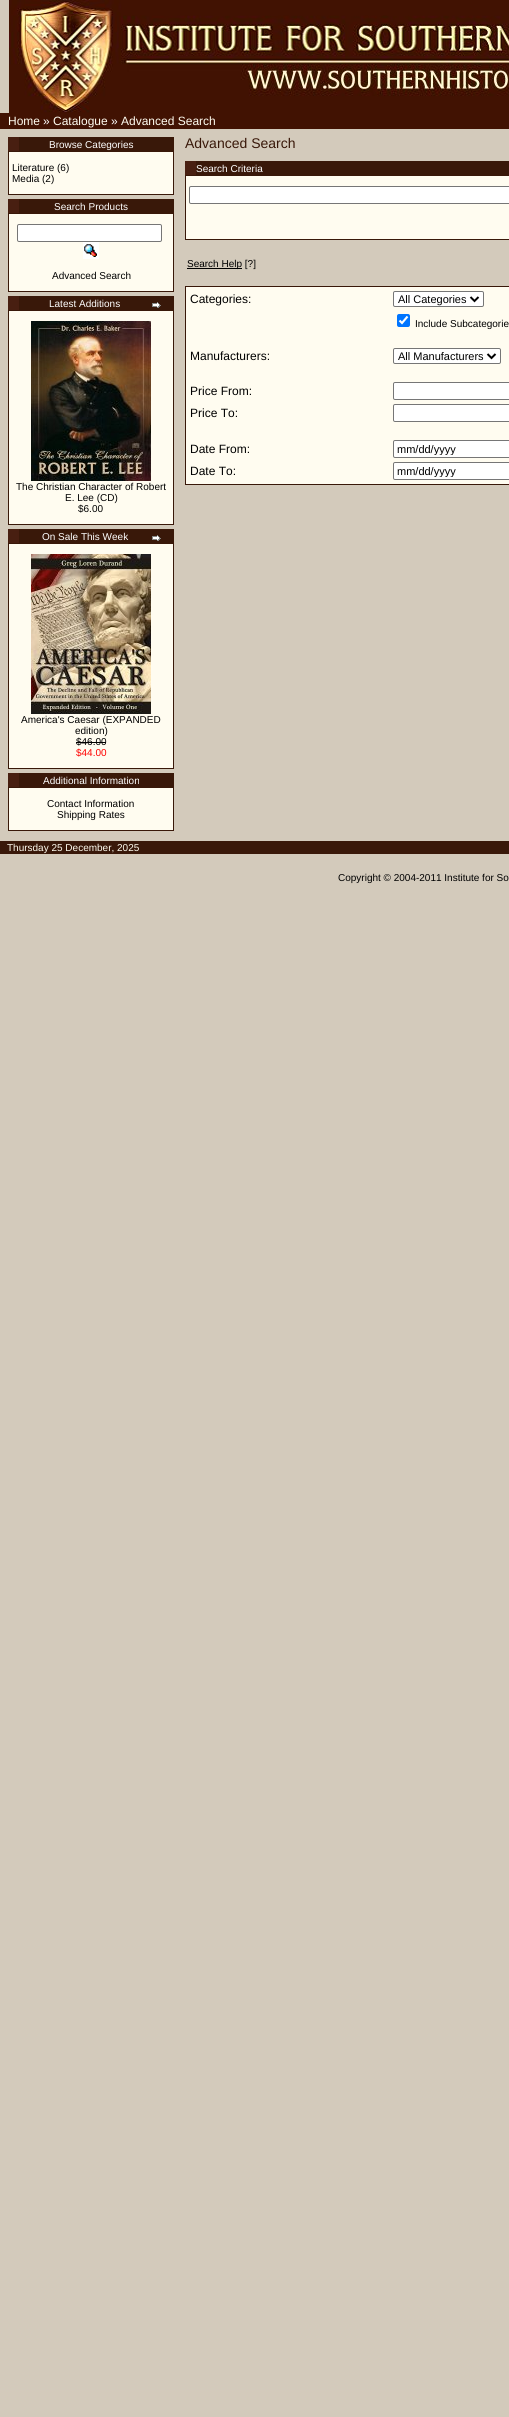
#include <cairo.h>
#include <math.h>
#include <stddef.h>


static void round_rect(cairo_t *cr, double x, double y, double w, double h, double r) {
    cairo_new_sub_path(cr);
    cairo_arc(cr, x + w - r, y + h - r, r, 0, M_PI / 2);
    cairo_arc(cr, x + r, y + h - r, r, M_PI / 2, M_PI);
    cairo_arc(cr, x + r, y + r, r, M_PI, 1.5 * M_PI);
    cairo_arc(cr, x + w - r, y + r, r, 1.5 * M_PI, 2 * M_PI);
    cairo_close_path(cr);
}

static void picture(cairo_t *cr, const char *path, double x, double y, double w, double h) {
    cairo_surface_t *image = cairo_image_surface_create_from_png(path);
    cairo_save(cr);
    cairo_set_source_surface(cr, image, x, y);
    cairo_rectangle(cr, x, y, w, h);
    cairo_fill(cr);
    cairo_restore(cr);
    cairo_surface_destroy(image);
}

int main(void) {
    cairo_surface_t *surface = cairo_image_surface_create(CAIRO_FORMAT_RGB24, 509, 2417);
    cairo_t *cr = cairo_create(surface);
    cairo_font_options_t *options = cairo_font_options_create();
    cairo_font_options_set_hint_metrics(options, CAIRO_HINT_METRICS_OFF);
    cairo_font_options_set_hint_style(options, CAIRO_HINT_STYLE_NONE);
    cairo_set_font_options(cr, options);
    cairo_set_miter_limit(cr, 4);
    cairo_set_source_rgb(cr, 0.827, 0.792, 0.733);
    cairo_paint(cr);
    picture(cr, "img1.png", 9, 0, 500, 113);
    cairo_set_source_rgb(cr, 0.255, 0.071, 0.008);
    cairo_rectangle(cr, 0, 113, 509, 16);
    cairo_fill(cr);
    cairo_select_font_face(cr, "Liberation Sans", CAIRO_FONT_SLANT_NORMAL, CAIRO_FONT_WEIGHT_NORMAL);
    cairo_set_font_size(cr, 12);
    cairo_set_source_rgb(cr, 1, 0.988, 0.941);
    cairo_move_to(cr, 8, 125);
    cairo_show_text(cr, "Home");
    cairo_set_source_rgb(cr, 1, 1, 1);
    cairo_move_to(cr, 43, 125);
    cairo_show_text(cr, "»");
    cairo_set_source_rgb(cr, 1, 0.988, 0.941);
    cairo_move_to(cr, 53, 125);
    cairo_show_text(cr, "Catalogue");
    cairo_set_source_rgb(cr, 1, 1, 1);
    cairo_move_to(cr, 111, 125);
    cairo_show_text(cr, "»");
    cairo_set_source_rgb(cr, 1, 0.988, 0.941);
    cairo_move_to(cr, 121, 125);
    cairo_show_text(cr, "Advanced Search");
    cairo_set_source_rgb(cr, 0.282, 0.122, 0.067);
    cairo_rectangle(cr, 8, 137, 11, 14);
    cairo_fill(cr);
    cairo_set_source_rgb(cr, 0.224, 0.094, 0.039);
    cairo_rectangle(cr, 19, 137, 155, 14);
    cairo_fill(cr);
    cairo_set_font_size(cr, 10);
    cairo_set_source_rgb(cr, 1, 1, 1);
    cairo_move_to(cr, 49, 148);
    cairo_show_text(cr, "Browse Categories");
    cairo_set_source_rgb(cr, 0.224, 0.094, 0.039);
    cairo_rectangle(cr, 8, 151, 166, 44);
    cairo_fill(cr);
    cairo_set_source_rgb(cr, 1, 0.988, 0.941);
    cairo_rectangle(cr, 9, 152, 164, 42);
    cairo_fill(cr);
    cairo_set_source_rgb(cr, 0, 0, 0);
    cairo_move_to(cr, 12, 171);
    cairo_show_text(cr, "Literature (6)");
    cairo_move_to(cr, 12, 182);
    cairo_show_text(cr, "Media (2)");
    cairo_set_source_rgb(cr, 0.282, 0.122, 0.067);
    cairo_rectangle(cr, 8, 199, 11, 14);
    cairo_fill(cr);
    cairo_set_source_rgb(cr, 0.224, 0.094, 0.039);
    cairo_rectangle(cr, 19, 199, 155, 14);
    cairo_fill(cr);
    cairo_set_source_rgb(cr, 1, 1, 1);
    cairo_move_to(cr, 54, 210);
    cairo_show_text(cr, "Search Products");
    cairo_set_source_rgb(cr, 0.224, 0.094, 0.039);
    cairo_rectangle(cr, 8, 213, 166, 79);
    cairo_fill(cr);
    cairo_set_source_rgb(cr, 1, 0.988, 0.941);
    cairo_rectangle(cr, 9, 214, 164, 77);
    cairo_fill(cr);
    cairo_set_source_rgb(cr, 1, 1, 1);
    round_rect(cr, 17.5, 224.5, 144, 17, 1.5);
    cairo_fill_preserve(cr);
    cairo_set_source_rgb(cr, 0.463, 0.463, 0.463);
    cairo_set_line_width(cr, 1);
    cairo_stroke(cr);
    picture(cr, "img2.png", 83, 242, 16, 17);
    cairo_set_source_rgb(cr, 0, 0, 0);
    cairo_move_to(cr, 52, 279);
    cairo_show_text(cr, "Advanced Search");
    cairo_set_source_rgb(cr, 0.282, 0.122, 0.067);
    cairo_rectangle(cr, 8, 296, 11, 14);
    cairo_fill(cr);
    cairo_set_source_rgb(cr, 0.224, 0.094, 0.039);
    cairo_rectangle(cr, 19, 296, 155, 14);
    cairo_fill(cr);
    cairo_set_source_rgb(cr, 1, 1, 1);
    cairo_move_to(cr, 49, 307);
    cairo_show_text(cr, "Latest Additions");
    picture(cr, "img3.png", 152, 302, 9, 6);
    cairo_set_source_rgb(cr, 0.224, 0.094, 0.039);
    cairo_rectangle(cr, 8, 310, 166, 215);
    cairo_fill(cr);
    cairo_set_source_rgb(cr, 1, 0.988, 0.941);
    cairo_rectangle(cr, 9, 311, 164, 213);
    cairo_fill(cr);
    picture(cr, "img4.png", 31, 321, 120, 160);
    cairo_set_source_rgb(cr, 0, 0, 0);
    cairo_move_to(cr, 16, 490);
    cairo_show_text(cr, "The Christian Character of Robert");
    cairo_move_to(cr, 65, 501);
    cairo_show_text(cr, "E. Lee (CD)");
    cairo_move_to(cr, 78, 512);
    cairo_show_text(cr, "$6.00");
    cairo_set_source_rgb(cr, 0.282, 0.122, 0.067);
    cairo_rectangle(cr, 8, 529, 11, 14);
    cairo_fill(cr);
    cairo_set_source_rgb(cr, 0.224, 0.094, 0.039);
    cairo_rectangle(cr, 19, 529, 155, 14);
    cairo_fill(cr);
    cairo_set_source_rgb(cr, 1, 1, 1);
    cairo_move_to(cr, 42, 540);
    cairo_show_text(cr, "On Sale This Week");
    picture(cr, "img3.png", 152, 535, 9, 6);
    cairo_set_source_rgb(cr, 0.224, 0.094, 0.039);
    cairo_rectangle(cr, 8, 543, 166, 226);
    cairo_fill(cr);
    cairo_set_source_rgb(cr, 1, 0.988, 0.941);
    cairo_rectangle(cr, 9, 544, 164, 224);
    cairo_fill(cr);
    picture(cr, "img5.png", 31, 554, 120, 160);
    cairo_set_source_rgb(cr, 0, 0, 0);
    cairo_move_to(cr, 21, 723);
    cairo_show_text(cr, "America's Caesar (EXPANDED");
    cairo_move_to(cr, 75, 734);
    cairo_show_text(cr, "edition)");
    cairo_move_to(cr, 76, 745);
    cairo_show_text(cr, "$46.00");
    cairo_rectangle(cr, 76, 742, 30, 1);
    cairo_fill(cr);
    cairo_set_source_rgb(cr, 1, 0, 0);
    cairo_move_to(cr, 76, 756);
    cairo_show_text(cr, "$44.00");
    cairo_set_source_rgb(cr, 0.282, 0.122, 0.067);
    cairo_rectangle(cr, 8, 773, 11, 14);
    cairo_fill(cr);
    cairo_set_source_rgb(cr, 0.224, 0.094, 0.039);
    cairo_rectangle(cr, 19, 773, 155, 14);
    cairo_fill(cr);
    cairo_set_source_rgb(cr, 1, 1, 1);
    cairo_move_to(cr, 43, 784);
    cairo_show_text(cr, "Additional Information");
    cairo_set_source_rgb(cr, 0.224, 0.094, 0.039);
    cairo_rectangle(cr, 8, 787, 166, 44);
    cairo_fill(cr);
    cairo_set_source_rgb(cr, 1, 0.988, 0.941);
    cairo_rectangle(cr, 9, 788, 164, 42);
    cairo_fill(cr);
    cairo_set_source_rgb(cr, 0, 0, 0);
    cairo_move_to(cr, 47, 807);
    cairo_show_text(cr, "Contact Information");
    cairo_move_to(cr, 57, 818);
    cairo_show_text(cr, "Shipping Rates");
    cairo_set_font_size(cr, 14);
    cairo_set_source_rgb(cr, 0.224, 0.094, 0.039);
    cairo_move_to(cr, 185, 148);
    cairo_show_text(cr, "Advanced Search");
    cairo_set_source_rgb(cr, 0.282, 0.122, 0.067);
    cairo_rectangle(cr, 185, 161, 11, 14);
    cairo_fill(cr);
    cairo_set_source_rgb(cr, 0.224, 0.094, 0.039);
    cairo_rectangle(cr, 196, 161, 313, 14);
    cairo_fill(cr);
    cairo_set_font_size(cr, 10);
    cairo_set_source_rgb(cr, 1, 1, 1);
    cairo_move_to(cr, 196, 172);
    cairo_show_text(cr, "Search Criteria");
    cairo_set_source_rgb(cr, 0.224, 0.094, 0.039);
    cairo_rectangle(cr, 185, 175, 324, 65);
    cairo_fill(cr);
    cairo_set_source_rgb(cr, 1, 0.988, 0.941);
    cairo_rectangle(cr, 186, 176, 323, 63);
    cairo_fill(cr);
    cairo_set_source_rgb(cr, 1, 1, 1);
    round_rect(cr, 189.5, 186.5, 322, 17, 1.5);
    cairo_fill_preserve(cr);
    cairo_set_source_rgb(cr, 0.463, 0.463, 0.463);
    cairo_stroke(cr);
    cairo_set_source_rgb(cr, 0, 0, 0);
    cairo_rectangle(cr, 187, 268, 55, 1);
    cairo_fill(cr);
    cairo_move_to(cr, 187, 267);
    cairo_show_text(cr, "Search Help [?]");
    cairo_set_source_rgb(cr, 0.224, 0.094, 0.039);
    cairo_rectangle(cr, 185, 286, 324, 199);
    cairo_fill(cr);
    cairo_set_source_rgb(cr, 1, 0.988, 0.941);
    cairo_rectangle(cr, 186, 287, 323, 197);
    cairo_fill(cr);
    cairo_set_font_size(cr, 12);
    cairo_set_source_rgb(cr, 0, 0, 0);
    cairo_move_to(cr, 190, 303);
    cairo_show_text(cr, "Categories:");
    cairo_set_source_rgb(cr, 1, 1, 1);
    round_rect(cr, 393.5, 291.5, 90, 15, 1.5);
    cairo_fill_preserve(cr);
    cairo_set_source_rgb(cr, 0.463, 0.463, 0.463);
    cairo_stroke(cr);
    cairo_new_path(cr);
    cairo_move_to(cr, 470.5, 297);
    cairo_line_to(cr, 474.5, 301);
    cairo_line_to(cr, 478.5, 297);
    cairo_set_source_rgb(cr, 0, 0, 0);
    cairo_set_line_width(cr, 2);
    cairo_stroke(cr);
    cairo_set_font_size(cr, 11);
    cairo_move_to(cr, 398, 303);
    cairo_show_text(cr, "All Categories");
    cairo_set_source_rgb(cr, 0, 0.459, 1);
    round_rect(cr, 397, 314, 13, 13, 2);
    cairo_fill(cr);
    cairo_new_path(cr);
    cairo_move_to(cr, 399.5, 320.5);
    cairo_line_to(cr, 402, 323);
    cairo_line_to(cr, 407.5, 316.5);
    cairo_set_source_rgb(cr, 1, 1, 1);
    cairo_set_line_width(cr, 2.1);
    cairo_stroke(cr);
    cairo_set_font_size(cr, 10);
    cairo_set_source_rgb(cr, 0, 0, 0);
    cairo_move_to(cr, 415, 327);
    cairo_show_text(cr, "Include Subcategorie");
    cairo_set_font_size(cr, 12);
    cairo_move_to(cr, 190, 360);
    cairo_show_text(cr, "Manufacturers:");
    cairo_set_source_rgb(cr, 1, 1, 1);
    round_rect(cr, 393.5, 348.5, 107, 15, 1.5);
    cairo_fill_preserve(cr);
    cairo_set_source_rgb(cr, 0.463, 0.463, 0.463);
    cairo_set_line_width(cr, 1);
    cairo_stroke(cr);
    cairo_new_path(cr);
    cairo_move_to(cr, 487.5, 354);
    cairo_line_to(cr, 491.5, 358);
    cairo_line_to(cr, 495.5, 354);
    cairo_set_source_rgb(cr, 0, 0, 0);
    cairo_set_line_width(cr, 2);
    cairo_stroke(cr);
    cairo_set_font_size(cr, 11);
    cairo_move_to(cr, 398, 360);
    cairo_show_text(cr, "All Manufacturers");
    cairo_set_font_size(cr, 12);
    cairo_move_to(cr, 190, 395);
    cairo_show_text(cr, "Price From:");
    cairo_set_source_rgb(cr, 1, 1, 1);
    round_rect(cr, 393.5, 382.5, 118, 17, 1.5);
    cairo_fill_preserve(cr);
    cairo_set_source_rgb(cr, 0.463, 0.463, 0.463);
    cairo_set_line_width(cr, 1);
    cairo_stroke(cr);
    cairo_set_source_rgb(cr, 0, 0, 0);
    cairo_move_to(cr, 190, 417);
    cairo_show_text(cr, "Price To:");
    cairo_set_source_rgb(cr, 1, 1, 1);
    round_rect(cr, 393.5, 404.5, 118, 17, 1.5);
    cairo_fill_preserve(cr);
    cairo_set_source_rgb(cr, 0.463, 0.463, 0.463);
    cairo_stroke(cr);
    cairo_set_source_rgb(cr, 0, 0, 0);
    cairo_move_to(cr, 190, 453);
    cairo_show_text(cr, "Date From:");
    cairo_set_source_rgb(cr, 1, 1, 1);
    round_rect(cr, 393.5, 440.5, 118, 17, 1.5);
    cairo_fill_preserve(cr);
    cairo_set_source_rgb(cr, 0.463, 0.463, 0.463);
    cairo_stroke(cr);
    cairo_save(cr);
    cairo_rectangle(cr, 397, 443, 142, 12);
    cairo_clip(cr);
    cairo_set_font_size(cr, 11);
    cairo_set_source_rgb(cr, 0, 0, 0);
    cairo_move_to(cr, 397, 453);
    cairo_show_text(cr, "mm/dd/yyyy");
    cairo_restore(cr);
    cairo_set_source_rgb(cr, 0, 0, 0);
    cairo_move_to(cr, 190, 475);
    cairo_show_text(cr, "Date To:");
    cairo_set_source_rgb(cr, 1, 1, 1);
    round_rect(cr, 393.5, 462.5, 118, 17, 1.5);
    cairo_fill_preserve(cr);
    cairo_set_source_rgb(cr, 0.463, 0.463, 0.463);
    cairo_stroke(cr);
    cairo_save(cr);
    cairo_rectangle(cr, 397, 465, 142, 12);
    cairo_clip(cr);
    cairo_set_font_size(cr, 11);
    cairo_set_source_rgb(cr, 0, 0, 0);
    cairo_move_to(cr, 397, 475);
    cairo_show_text(cr, "mm/dd/yyyy");
    cairo_restore(cr);
    cairo_set_source_rgb(cr, 0.224, 0.094, 0.039);
    cairo_rectangle(cr, 0, 841, 509, 13);
    cairo_fill(cr);
    cairo_set_font_size(cr, 10);
    cairo_set_source_rgb(cr, 1, 0.988, 0.941);
    cairo_move_to(cr, 7, 851);
    cairo_show_text(cr, "Thursday 25 December, 2025");
    cairo_set_source_rgb(cr, 0, 0, 0);
    cairo_move_to(cr, 338, 881);
    cairo_show_text(cr, "Copyright © 2004-2011 Institute for So");
    cairo_surface_write_to_png(surface, "page.png");
    cairo_font_options_destroy(options);
    cairo_destroy(cr);
    cairo_surface_destroy(surface);
    return 0;
}
